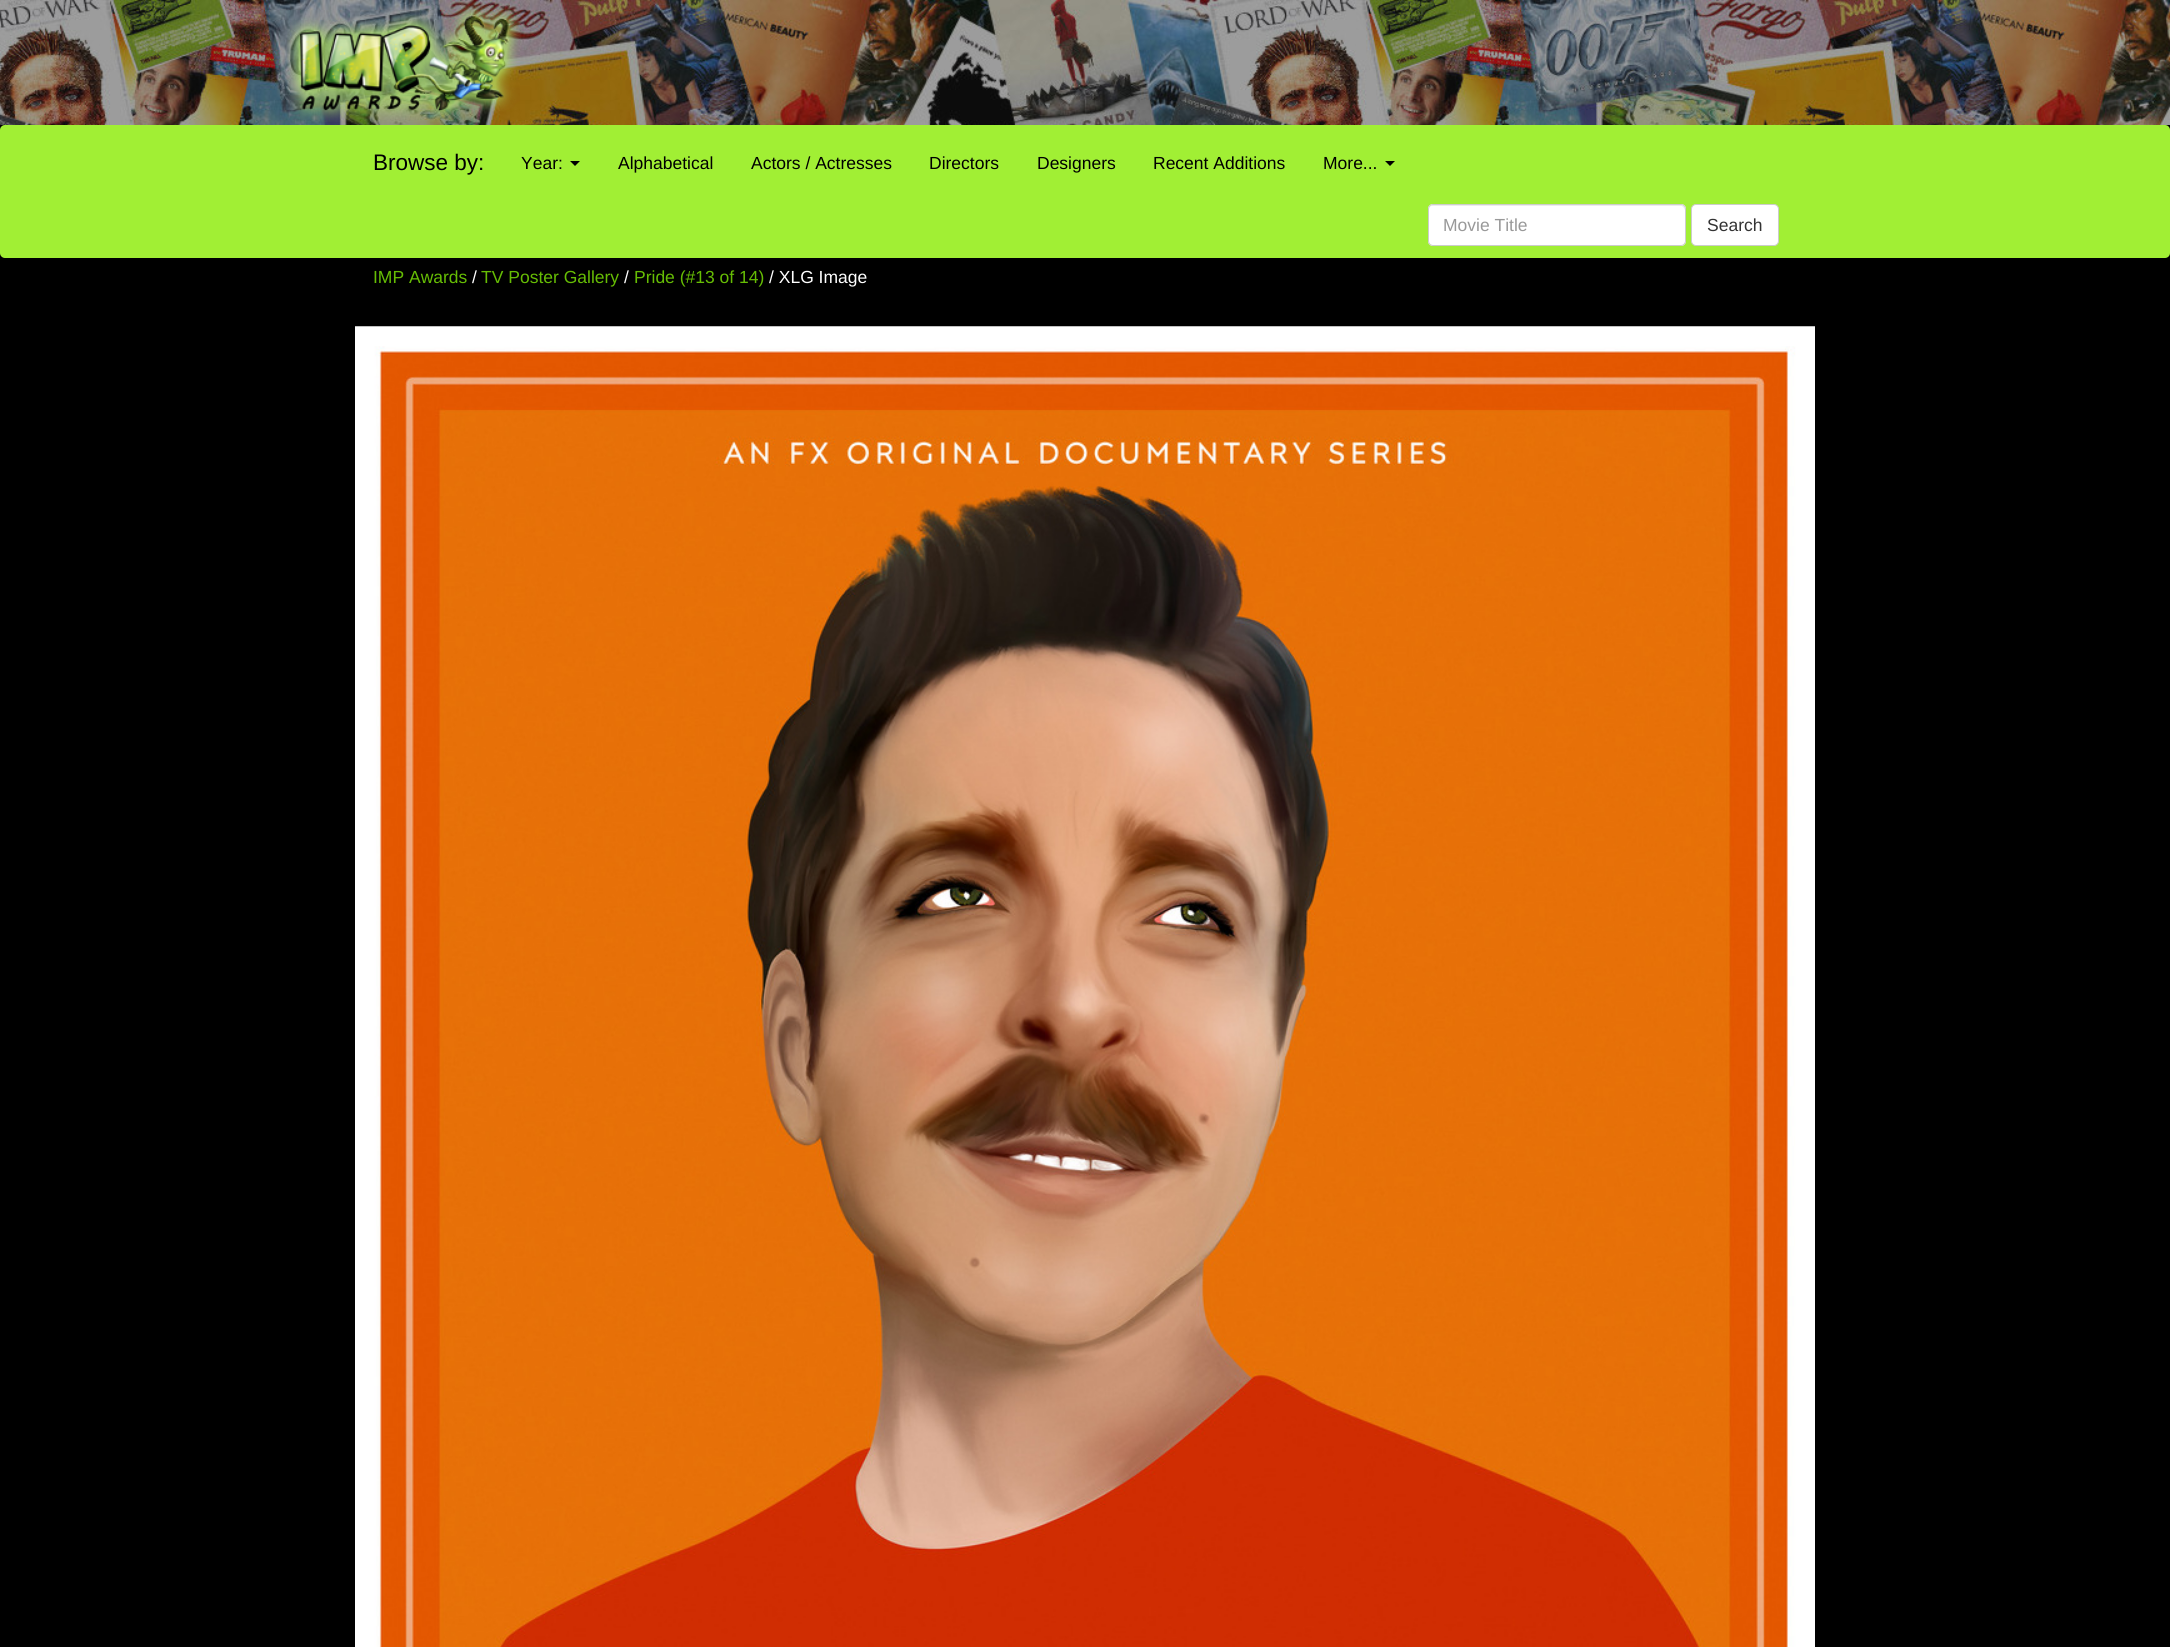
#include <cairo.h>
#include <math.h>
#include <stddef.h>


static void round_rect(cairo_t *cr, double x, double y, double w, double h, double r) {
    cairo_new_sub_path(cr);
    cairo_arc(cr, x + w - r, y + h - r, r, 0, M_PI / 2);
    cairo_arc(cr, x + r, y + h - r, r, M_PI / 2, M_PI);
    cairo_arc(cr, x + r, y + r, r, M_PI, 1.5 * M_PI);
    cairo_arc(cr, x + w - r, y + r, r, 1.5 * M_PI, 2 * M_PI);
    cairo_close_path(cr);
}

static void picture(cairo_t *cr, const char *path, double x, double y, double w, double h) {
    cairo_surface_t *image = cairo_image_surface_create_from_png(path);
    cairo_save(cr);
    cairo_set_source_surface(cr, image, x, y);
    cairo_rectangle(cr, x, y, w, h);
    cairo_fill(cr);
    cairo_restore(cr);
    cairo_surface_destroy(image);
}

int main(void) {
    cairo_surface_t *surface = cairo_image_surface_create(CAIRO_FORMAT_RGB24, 2170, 1647);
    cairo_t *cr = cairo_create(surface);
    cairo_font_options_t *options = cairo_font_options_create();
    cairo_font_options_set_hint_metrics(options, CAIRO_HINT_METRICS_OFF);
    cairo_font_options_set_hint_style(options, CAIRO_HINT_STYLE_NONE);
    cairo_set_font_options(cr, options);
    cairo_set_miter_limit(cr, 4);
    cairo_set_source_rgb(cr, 0, 0, 0);
    cairo_paint(cr);
    picture(cr, "img1.png", 0, 0, 2170, 125);
    picture(cr, "img2.png", 287, 3, 235, 119);
    cairo_set_source_rgb(cr, 0.631, 0.937, 0.204);
    round_rect(cr, 0, 125, 2170, 133, 5);
    cairo_fill(cr);
    cairo_select_font_face(cr, "Liberation Sans", CAIRO_FONT_SLANT_NORMAL, CAIRO_FONT_WEIGHT_NORMAL);
    cairo_set_font_size(cr, 22.5);
    cairo_set_source_rgb(cr, 0, 0, 0);
    cairo_move_to(cr, 373, 170);
    cairo_show_text(cr, "Browse by:");
    cairo_set_font_size(cr, 17.5);
    cairo_move_to(cr, 521, 169);
    cairo_show_text(cr, "Year:");
    cairo_new_path(cr);
    cairo_move_to(cr, 570, 161);
    cairo_line_to(cr, 580, 161);
    cairo_line_to(cr, 575, 166);
    cairo_close_path(cr);
    cairo_fill(cr);
    cairo_move_to(cr, 618, 169);
    cairo_show_text(cr, "Alphabetical");
    cairo_move_to(cr, 751, 169);
    cairo_show_text(cr, "Actors / Actresses");
    cairo_move_to(cr, 929, 169);
    cairo_show_text(cr, "Directors");
    cairo_move_to(cr, 1037, 169);
    cairo_show_text(cr, "Designers");
    cairo_move_to(cr, 1153, 169);
    cairo_show_text(cr, "Recent Additions");
    cairo_move_to(cr, 1323, 169);
    cairo_show_text(cr, "More...");
    cairo_new_path(cr);
    cairo_move_to(cr, 1385, 161);
    cairo_line_to(cr, 1395, 161);
    cairo_line_to(cr, 1390, 166);
    cairo_close_path(cr);
    cairo_fill(cr);
    cairo_set_source_rgb(cr, 1, 1, 1);
    round_rect(cr, 1428, 204, 258, 42, 5);
    cairo_fill(cr);
    cairo_set_source_rgb(cr, 0.925, 0.925, 0.925);
    cairo_new_path(cr);
    cairo_move_to(cr, 1432, 206);
    cairo_line_to(cr, 1682, 206);
    cairo_line_to(cr, 1684, 208);
    cairo_line_to(cr, 1685, 210);
    cairo_line_to(cr, 1685, 209);
    cairo_curve_to(cr, 1685, 207, 1683, 205, 1681, 205);
    cairo_line_to(cr, 1433, 205);
    cairo_curve_to(cr, 1431, 205, 1429, 207, 1429, 209);
    cairo_line_to(cr, 1429, 210);
    cairo_curve_to(cr, 1429, 208, 1430, 206, 1432, 206);
    cairo_close_path(cr);
    cairo_fill(cr);
    round_rect(cr, 1428.5, 204.5, 257, 41, 4.5);
    cairo_set_source_rgb(cr, 0.8, 0.8, 0.8);
    cairo_set_line_width(cr, 1);
    cairo_stroke(cr);
    cairo_set_source_rgb(cr, 0.6, 0.6, 0.6);
    cairo_move_to(cr, 1443, 231);
    cairo_show_text(cr, "Movie Title");
    cairo_set_source_rgb(cr, 1, 1, 1);
    round_rect(cr, 1691.5, 204.5, 87, 41, 4.5);
    cairo_fill_preserve(cr);
    cairo_set_source_rgb(cr, 0.8, 0.8, 0.8);
    cairo_stroke(cr);
    cairo_set_source_rgb(cr, 0.2, 0.2, 0.2);
    cairo_move_to(cr, 1707, 231);
    cairo_show_text(cr, "Search");
    cairo_set_source_rgb(cr, 0.4, 0.741, 0.016);
    cairo_move_to(cr, 373, 283);
    cairo_show_text(cr, "IMP Awards");
    cairo_set_source_rgb(cr, 1, 1, 1);
    cairo_move_to(cr, 472, 283);
    cairo_show_text(cr, "/");
    cairo_set_source_rgb(cr, 0.4, 0.741, 0.016);
    cairo_move_to(cr, 481, 283);
    cairo_show_text(cr, "TV Poster Gallery");
    cairo_set_source_rgb(cr, 1, 1, 1);
    cairo_move_to(cr, 624, 283);
    cairo_show_text(cr, "/");
    cairo_set_source_rgb(cr, 0.4, 0.741, 0.016);
    cairo_move_to(cr, 634, 283);
    cairo_show_text(cr, "Pride (#13 of 14)");
    cairo_set_source_rgb(cr, 1, 1, 1);
    cairo_move_to(cr, 769, 283);
    cairo_show_text(cr, "/ XLG Image");
    picture(cr, "img3.png", 355, 326, 1460, 1321);
    cairo_surface_write_to_png(surface, "page.png");
    cairo_font_options_destroy(options);
    cairo_destroy(cr);
    cairo_surface_destroy(surface);
    return 0;
}
